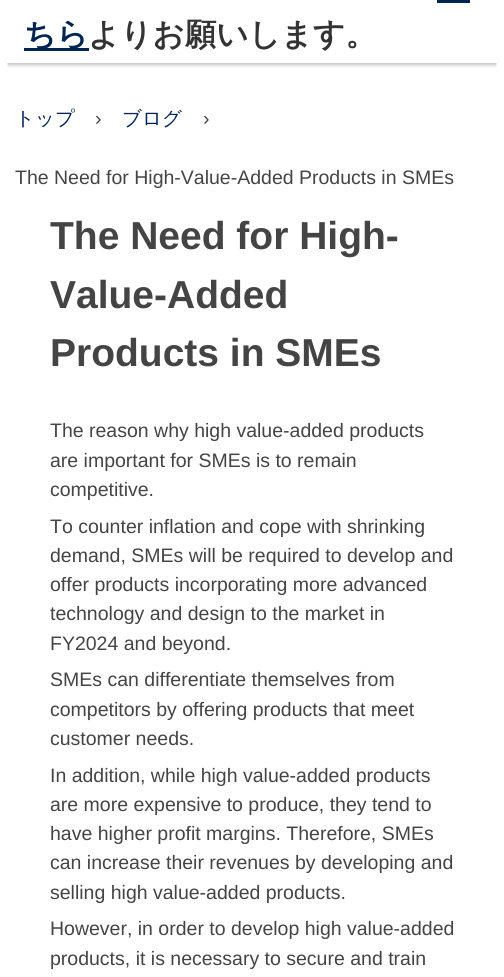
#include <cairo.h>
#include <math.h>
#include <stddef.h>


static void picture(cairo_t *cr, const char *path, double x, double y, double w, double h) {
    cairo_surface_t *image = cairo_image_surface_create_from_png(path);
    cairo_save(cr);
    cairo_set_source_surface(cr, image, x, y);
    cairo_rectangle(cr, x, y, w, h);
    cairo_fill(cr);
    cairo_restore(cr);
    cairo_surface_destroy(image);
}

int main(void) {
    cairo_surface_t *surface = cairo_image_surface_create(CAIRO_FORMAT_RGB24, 504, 977);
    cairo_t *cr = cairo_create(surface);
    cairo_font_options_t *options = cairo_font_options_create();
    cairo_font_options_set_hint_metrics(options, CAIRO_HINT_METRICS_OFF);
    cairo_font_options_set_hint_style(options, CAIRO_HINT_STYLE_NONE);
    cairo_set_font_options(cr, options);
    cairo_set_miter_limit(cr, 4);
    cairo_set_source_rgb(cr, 1, 1, 1);
    cairo_paint(cr);
    picture(cr, "img1.png", 7, 63, 490, 5);
    cairo_set_source_rgb(cr, 0.008, 0.141, 0.318);
    cairo_rectangle(cr, 24, 48, 65, 3);
    cairo_fill(cr);
    cairo_select_font_face(cr, "WenQuanYi Zen Hei", CAIRO_FONT_SLANT_NORMAL, CAIRO_FONT_WEIGHT_BOLD);
    cairo_set_font_size(cr, 31.5);
    cairo_move_to(cr, 24, 45);
    cairo_show_text(cr, "ちら");
    cairo_rectangle(cr, 437, 0, 33, 3);
    cairo_fill(cr);
    cairo_set_source_rgb(cr, 0.2, 0.2, 0.2);
    cairo_move_to(cr, 88, 45);
    cairo_show_text(cr, "よりお願いします。");
    cairo_select_font_face(cr, "WenQuanYi Zen Hei Medium", CAIRO_FONT_SLANT_NORMAL, CAIRO_FONT_WEIGHT_NORMAL);
    cairo_set_font_size(cr, 19.5);
    cairo_set_source_rgb(cr, 0.008, 0.141, 0.318);
    cairo_move_to(cr, 15, 125);
    cairo_show_text(cr, "トップ");
    cairo_select_font_face(cr, "Liberation Sans", CAIRO_FONT_SLANT_NORMAL, CAIRO_FONT_WEIGHT_NORMAL);
    cairo_set_source_rgb(cr, 0.267, 0.267, 0.267);
    cairo_move_to(cr, 95, 125);
    cairo_show_text(cr, "›");
    cairo_select_font_face(cr, "WenQuanYi Zen Hei Medium", CAIRO_FONT_SLANT_NORMAL, CAIRO_FONT_WEIGHT_NORMAL);
    cairo_set_source_rgb(cr, 0.008, 0.141, 0.318);
    cairo_move_to(cr, 122, 125);
    cairo_show_text(cr, "ブログ");
    cairo_select_font_face(cr, "Liberation Sans", CAIRO_FONT_SLANT_NORMAL, CAIRO_FONT_WEIGHT_NORMAL);
    cairo_set_source_rgb(cr, 0.267, 0.267, 0.267);
    cairo_move_to(cr, 203, 125);
    cairo_show_text(cr, "›");
    cairo_move_to(cr, 15, 184);
    cairo_show_text(cr, "The Need for High-Value-Added Products in SMEs");
    cairo_select_font_face(cr, "Liberation Sans", CAIRO_FONT_SLANT_NORMAL, CAIRO_FONT_WEIGHT_BOLD);
    cairo_set_font_size(cr, 39);
    cairo_move_to(cr, 50, 249);
    cairo_show_text(cr, "The Need for High-");
    cairo_move_to(cr, 50, 308);
    cairo_show_text(cr, "Value-Added");
    cairo_move_to(cr, 50, 366);
    cairo_show_text(cr, "Products in SMEs");
    cairo_select_font_face(cr, "Liberation Sans", CAIRO_FONT_SLANT_NORMAL, CAIRO_FONT_WEIGHT_NORMAL);
    cairo_set_font_size(cr, 19.5);
    cairo_move_to(cr, 50, 437);
    cairo_show_text(cr, "The reason why high value-added products");
    cairo_move_to(cr, 50, 467);
    cairo_show_text(cr, "are important for SMEs is to remain");
    cairo_move_to(cr, 50, 496);
    cairo_show_text(cr, "competitive.");
    cairo_move_to(cr, 50, 533);
    cairo_show_text(cr, "To counter inflation and cope with shrinking");
    cairo_move_to(cr, 50, 562);
    cairo_show_text(cr, "demand, SMEs will be required to develop and");
    cairo_move_to(cr, 50, 591);
    cairo_show_text(cr, "offer products incorporating more advanced");
    cairo_move_to(cr, 50, 620);
    cairo_show_text(cr, "technology and design to the market in");
    cairo_move_to(cr, 50, 650);
    cairo_show_text(cr, "FY2024 and beyond.");
    cairo_move_to(cr, 50, 686);
    cairo_show_text(cr, "SMEs can differentiate themselves from");
    cairo_move_to(cr, 50, 716);
    cairo_show_text(cr, "competitors by offering products that meet");
    cairo_move_to(cr, 50, 745);
    cairo_show_text(cr, "customer needs.");
    cairo_move_to(cr, 50, 782);
    cairo_show_text(cr, "In addition, while high value-added products");
    cairo_move_to(cr, 50, 811);
    cairo_show_text(cr, "are more expensive to produce, they tend to");
    cairo_move_to(cr, 50, 840);
    cairo_show_text(cr, "have higher profit margins. Therefore, SMEs");
    cairo_move_to(cr, 50, 869);
    cairo_show_text(cr, "can increase their revenues by developing and");
    cairo_move_to(cr, 50, 899);
    cairo_show_text(cr, "selling high value-added products.");
    cairo_move_to(cr, 50, 935);
    cairo_show_text(cr, "However, in order to develop high value-added");
    cairo_move_to(cr, 50, 965);
    cairo_show_text(cr, "products, it is necessary to secure and train");
    cairo_surface_write_to_png(surface, "page.png");
    cairo_font_options_destroy(options);
    cairo_destroy(cr);
    cairo_surface_destroy(surface);
    return 0;
}
